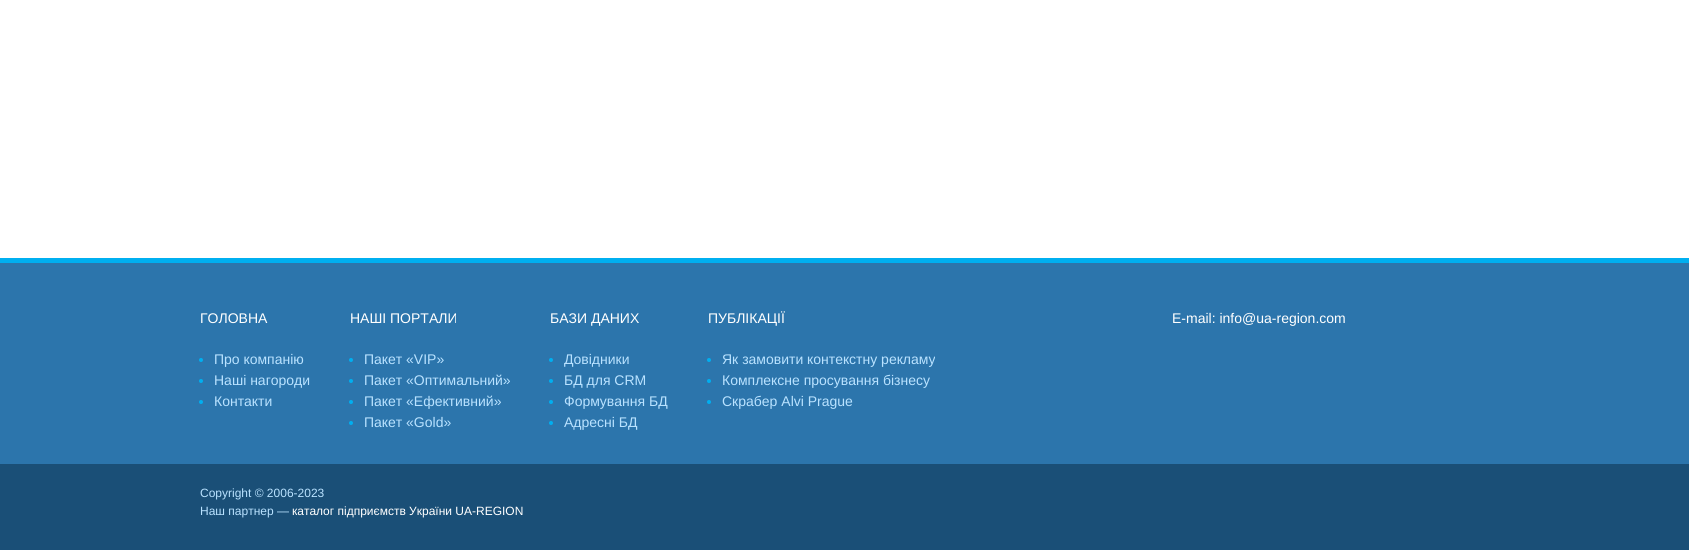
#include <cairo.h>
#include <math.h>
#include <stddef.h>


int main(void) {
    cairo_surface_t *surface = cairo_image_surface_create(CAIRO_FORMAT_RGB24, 1689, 550);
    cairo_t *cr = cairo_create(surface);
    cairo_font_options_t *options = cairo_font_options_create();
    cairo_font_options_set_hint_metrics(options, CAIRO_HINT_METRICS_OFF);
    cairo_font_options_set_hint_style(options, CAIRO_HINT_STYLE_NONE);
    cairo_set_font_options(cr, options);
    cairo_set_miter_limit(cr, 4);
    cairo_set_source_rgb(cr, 1, 1, 1);
    cairo_paint(cr);
    cairo_set_source_rgb(cr, 0, 0.686, 0.941);
    cairo_rectangle(cr, 0, 258, 1689, 5);
    cairo_fill(cr);
    cairo_set_source_rgb(cr, 0.173, 0.459, 0.675);
    cairo_rectangle(cr, 0, 263, 1689, 201);
    cairo_fill(cr);
    cairo_select_font_face(cr, "Liberation Sans", CAIRO_FONT_SLANT_NORMAL, CAIRO_FONT_WEIGHT_NORMAL);
    cairo_set_font_size(cr, 14);
    cairo_set_source_rgb(cr, 1, 1, 1);
    cairo_move_to(cr, 200, 323);
    cairo_show_text(cr, "ГОЛОВНА");
    cairo_set_source_rgb(cr, 0, 0.686, 0.941);
    cairo_new_path(cr);
    cairo_arc(cr, 201, 360, 2, 0, 2 * M_PI);
    cairo_fill(cr);
    cairo_set_source_rgb(cr, 0.725, 0.886, 1);
    cairo_move_to(cr, 214, 364);
    cairo_show_text(cr, "Про компанію");
    cairo_set_source_rgb(cr, 0, 0.686, 0.941);
    cairo_new_path(cr);
    cairo_arc(cr, 201, 381, 2, 0, 2 * M_PI);
    cairo_fill(cr);
    cairo_set_source_rgb(cr, 0.725, 0.886, 1);
    cairo_move_to(cr, 214, 385);
    cairo_show_text(cr, "Наші нагороди");
    cairo_set_source_rgb(cr, 0, 0.686, 0.941);
    cairo_new_path(cr);
    cairo_arc(cr, 201, 402, 2, 0, 2 * M_PI);
    cairo_fill(cr);
    cairo_set_source_rgb(cr, 0.725, 0.886, 1);
    cairo_move_to(cr, 214, 406);
    cairo_show_text(cr, "Контакти");
    cairo_set_source_rgb(cr, 1, 1, 1);
    cairo_move_to(cr, 350, 323);
    cairo_show_text(cr, "НАШІ ПОРТАЛИ");
    cairo_set_source_rgb(cr, 0, 0.686, 0.941);
    cairo_new_path(cr);
    cairo_arc(cr, 351, 360, 2, 0, 2 * M_PI);
    cairo_fill(cr);
    cairo_set_source_rgb(cr, 0.725, 0.886, 1);
    cairo_move_to(cr, 364, 364);
    cairo_show_text(cr, "Пакет «VIP»");
    cairo_set_source_rgb(cr, 0, 0.686, 0.941);
    cairo_new_path(cr);
    cairo_arc(cr, 351, 381, 2, 0, 2 * M_PI);
    cairo_fill(cr);
    cairo_set_source_rgb(cr, 0.725, 0.886, 1);
    cairo_move_to(cr, 364, 385);
    cairo_show_text(cr, "Пакет «Оптимальний»");
    cairo_set_source_rgb(cr, 0, 0.686, 0.941);
    cairo_new_path(cr);
    cairo_arc(cr, 351, 402, 2, 0, 2 * M_PI);
    cairo_fill(cr);
    cairo_set_source_rgb(cr, 0.725, 0.886, 1);
    cairo_move_to(cr, 364, 406);
    cairo_show_text(cr, "Пакет «Ефективний»");
    cairo_set_source_rgb(cr, 0, 0.686, 0.941);
    cairo_new_path(cr);
    cairo_arc(cr, 351, 423, 2, 0, 2 * M_PI);
    cairo_fill(cr);
    cairo_set_source_rgb(cr, 0.725, 0.886, 1);
    cairo_move_to(cr, 364, 427);
    cairo_show_text(cr, "Пакет «Gold»");
    cairo_set_source_rgb(cr, 1, 1, 1);
    cairo_move_to(cr, 550, 323);
    cairo_show_text(cr, "БАЗИ ДАНИХ");
    cairo_set_source_rgb(cr, 0, 0.686, 0.941);
    cairo_new_path(cr);
    cairo_arc(cr, 551, 360, 2, 0, 2 * M_PI);
    cairo_fill(cr);
    cairo_set_source_rgb(cr, 0.725, 0.886, 1);
    cairo_move_to(cr, 564, 364);
    cairo_show_text(cr, "Довідники");
    cairo_set_source_rgb(cr, 0, 0.686, 0.941);
    cairo_new_path(cr);
    cairo_arc(cr, 551, 381, 2, 0, 2 * M_PI);
    cairo_fill(cr);
    cairo_set_source_rgb(cr, 0.725, 0.886, 1);
    cairo_move_to(cr, 564, 385);
    cairo_show_text(cr, "БД для CRM");
    cairo_set_source_rgb(cr, 0, 0.686, 0.941);
    cairo_new_path(cr);
    cairo_arc(cr, 551, 402, 2, 0, 2 * M_PI);
    cairo_fill(cr);
    cairo_set_source_rgb(cr, 0.725, 0.886, 1);
    cairo_move_to(cr, 564, 406);
    cairo_show_text(cr, "Формування БД");
    cairo_set_source_rgb(cr, 0, 0.686, 0.941);
    cairo_new_path(cr);
    cairo_arc(cr, 551, 423, 2, 0, 2 * M_PI);
    cairo_fill(cr);
    cairo_set_source_rgb(cr, 0.725, 0.886, 1);
    cairo_move_to(cr, 564, 427);
    cairo_show_text(cr, "Адресні БД");
    cairo_set_source_rgb(cr, 1, 1, 1);
    cairo_move_to(cr, 708, 323);
    cairo_show_text(cr, "ПУБЛІКАЦІЇ");
    cairo_set_source_rgb(cr, 0, 0.686, 0.941);
    cairo_new_path(cr);
    cairo_arc(cr, 709, 360, 2, 0, 2 * M_PI);
    cairo_fill(cr);
    cairo_set_source_rgb(cr, 0.725, 0.886, 1);
    cairo_move_to(cr, 722, 364);
    cairo_show_text(cr, "Як замовити контекстну рекламу");
    cairo_set_source_rgb(cr, 0, 0.686, 0.941);
    cairo_new_path(cr);
    cairo_arc(cr, 709, 381, 2, 0, 2 * M_PI);
    cairo_fill(cr);
    cairo_set_source_rgb(cr, 0.725, 0.886, 1);
    cairo_move_to(cr, 722, 385);
    cairo_show_text(cr, "Комплексне просування бізнесу");
    cairo_set_source_rgb(cr, 0, 0.686, 0.941);
    cairo_new_path(cr);
    cairo_arc(cr, 709, 402, 2, 0, 2 * M_PI);
    cairo_fill(cr);
    cairo_set_source_rgb(cr, 0.725, 0.886, 1);
    cairo_move_to(cr, 722, 406);
    cairo_show_text(cr, "Скрабер Alvi Prague");
    cairo_set_source_rgb(cr, 1, 1, 1);
    cairo_move_to(cr, 1172, 323);
    cairo_show_text(cr, "E-mail: info@ua-region.com");
    cairo_set_source_rgb(cr, 0.102, 0.31, 0.467);
    cairo_rectangle(cr, 0, 464, 1689, 86);
    cairo_fill(cr);
    cairo_set_font_size(cr, 12);
    cairo_set_source_rgb(cr, 0.725, 0.886, 1);
    cairo_move_to(cr, 200, 497);
    cairo_show_text(cr, "Copyright © 2006-2023");
    cairo_move_to(cr, 200, 515);
    cairo_show_text(cr, "Наш партнер —");
    cairo_set_source_rgb(cr, 1, 1, 1);
    cairo_move_to(cr, 292, 515);
    cairo_show_text(cr, "каталог підприємств України UA-REGION");
    cairo_surface_write_to_png(surface, "page.png");
    cairo_font_options_destroy(options);
    cairo_destroy(cr);
    cairo_surface_destroy(surface);
    return 0;
}
